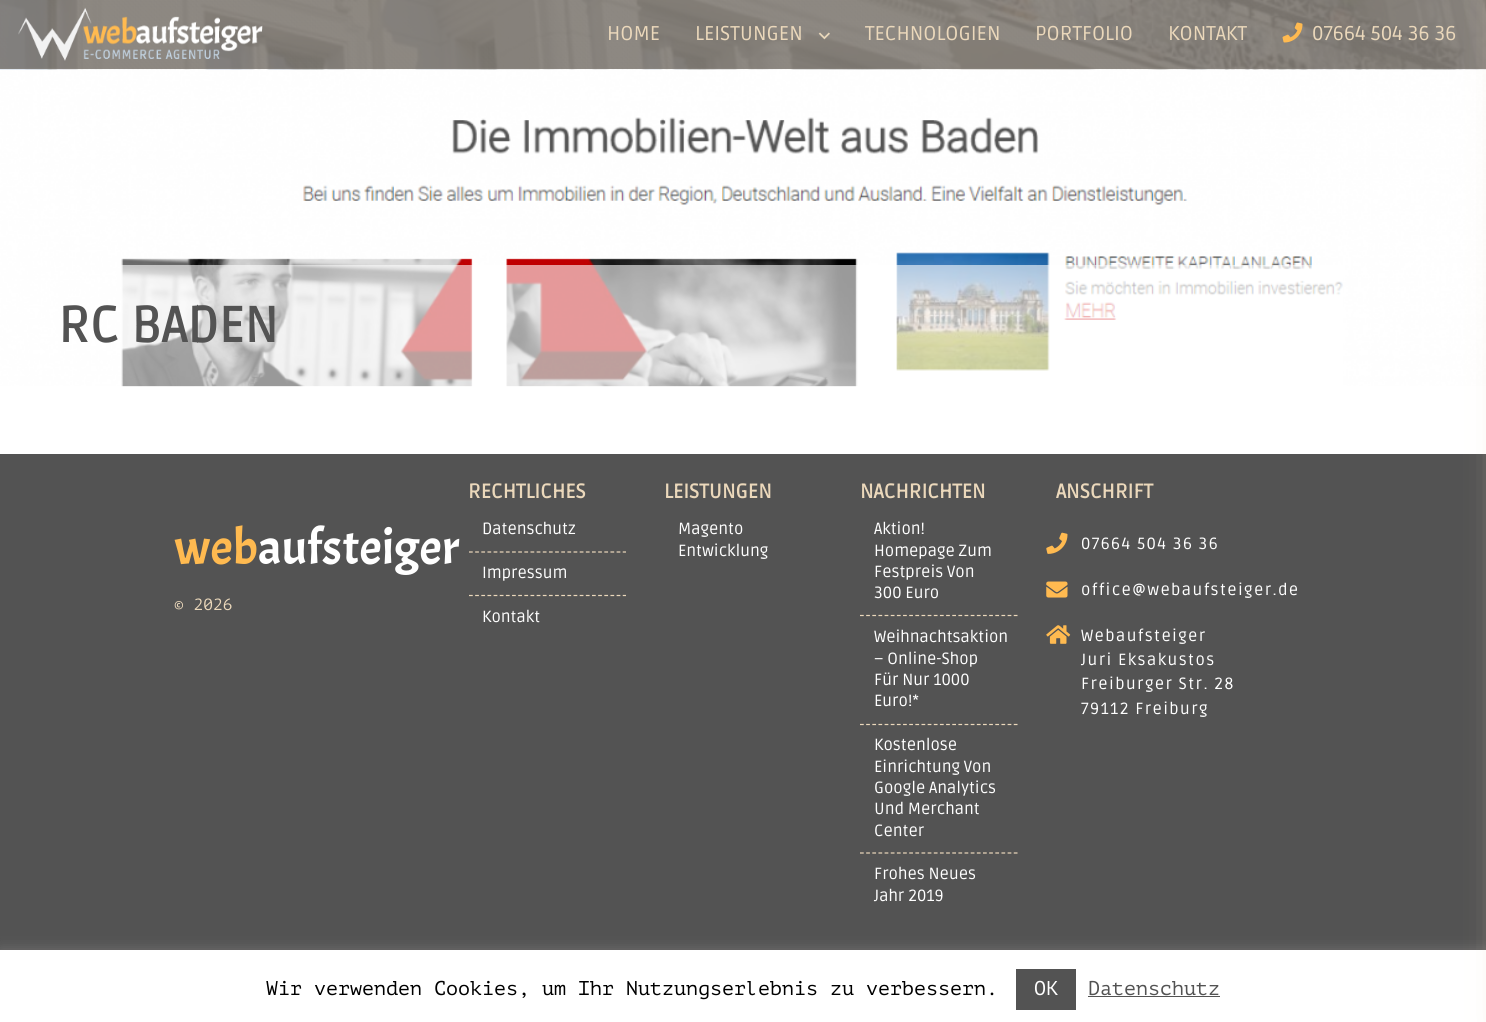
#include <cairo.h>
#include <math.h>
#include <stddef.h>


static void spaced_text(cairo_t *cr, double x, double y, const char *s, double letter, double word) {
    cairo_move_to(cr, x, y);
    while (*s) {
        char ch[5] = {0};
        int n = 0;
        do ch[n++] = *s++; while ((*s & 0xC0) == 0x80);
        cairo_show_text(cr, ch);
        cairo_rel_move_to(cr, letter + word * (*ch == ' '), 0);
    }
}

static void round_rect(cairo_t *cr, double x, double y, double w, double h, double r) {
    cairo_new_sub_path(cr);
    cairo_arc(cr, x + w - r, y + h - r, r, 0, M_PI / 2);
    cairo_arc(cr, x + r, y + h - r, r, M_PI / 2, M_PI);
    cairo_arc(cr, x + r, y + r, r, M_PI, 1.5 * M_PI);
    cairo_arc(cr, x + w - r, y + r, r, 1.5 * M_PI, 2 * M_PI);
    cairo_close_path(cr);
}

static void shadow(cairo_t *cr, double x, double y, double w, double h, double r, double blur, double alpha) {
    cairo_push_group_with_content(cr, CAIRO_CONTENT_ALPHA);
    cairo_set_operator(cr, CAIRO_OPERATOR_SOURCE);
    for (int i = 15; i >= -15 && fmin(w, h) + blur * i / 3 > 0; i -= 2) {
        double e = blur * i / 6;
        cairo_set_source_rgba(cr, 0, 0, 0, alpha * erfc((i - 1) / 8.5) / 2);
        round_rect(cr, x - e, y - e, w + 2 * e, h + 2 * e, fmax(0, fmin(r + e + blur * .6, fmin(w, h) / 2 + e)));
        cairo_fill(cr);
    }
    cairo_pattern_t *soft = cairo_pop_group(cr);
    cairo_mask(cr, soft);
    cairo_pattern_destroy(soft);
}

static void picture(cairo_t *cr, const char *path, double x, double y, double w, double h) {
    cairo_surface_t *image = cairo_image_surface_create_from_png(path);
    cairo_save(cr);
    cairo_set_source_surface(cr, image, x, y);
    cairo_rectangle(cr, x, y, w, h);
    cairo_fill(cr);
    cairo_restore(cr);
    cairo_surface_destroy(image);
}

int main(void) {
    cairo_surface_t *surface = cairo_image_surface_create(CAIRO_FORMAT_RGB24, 1486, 1022);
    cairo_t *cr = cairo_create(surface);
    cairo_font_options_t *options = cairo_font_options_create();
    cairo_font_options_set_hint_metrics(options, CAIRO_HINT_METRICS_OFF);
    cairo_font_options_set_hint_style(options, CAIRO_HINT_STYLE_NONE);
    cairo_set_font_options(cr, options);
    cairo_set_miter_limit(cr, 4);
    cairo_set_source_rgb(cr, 1, 1, 1);
    cairo_paint(cr);
    picture(cr, "img4.png", 0, 0, 1486, 387);
    cairo_set_source_rgba(cr, 0.514, 0.494, 0.467, 0.9);
    cairo_rectangle(cr, 0, 0, 1486, 69);
    cairo_fill(cr);
    picture(cr, "img1.png", 18, 7, 245, 54);
    cairo_select_font_face(cr, "Ruda", CAIRO_FONT_SLANT_NORMAL, CAIRO_FONT_WEIGHT_NORMAL);
    cairo_set_font_size(cr, 20);
    cairo_set_source_rgb(cr, 0.918, 0.847, 0.733);
    cairo_move_to(cr, 607, 40);
    cairo_show_text(cr, "HOME");
    cairo_move_to(cr, 695, 40);
    cairo_show_text(cr, "LEISTUNGEN");
    picture(cr, "img2.png", 818, 32, 12, 8);
    cairo_move_to(cr, 865, 40);
    cairo_show_text(cr, "TECHNOLOGIEN");
    cairo_move_to(cr, 1035, 40);
    cairo_show_text(cr, "PORTFOLIO");
    cairo_move_to(cr, 1168, 40);
    cairo_show_text(cr, "KONTAKT");
    picture(cr, "img3.png", 1282, 22, 21, 21);
    cairo_move_to(cr, 1312, 40);
    cairo_show_text(cr, "07664 504 36 36");
    cairo_set_source_rgba(cr, 1, 1, 1, 0.6);
    cairo_rectangle(cr, 121, 265, 1222, 121);
    cairo_fill(cr);
    cairo_select_font_face(cr, "Ruda", CAIRO_FONT_SLANT_NORMAL, CAIRO_FONT_WEIGHT_BOLD);
    cairo_set_font_size(cr, 50);
    cairo_set_source_rgb(cr, 0.325, 0.325, 0.325);
    cairo_move_to(cr, 58, 342);
    cairo_show_text(cr, "RC BADEN");
    cairo_rectangle(cr, 0, 454, 1486, 496);
    cairo_fill(cr);
    cairo_select_font_face(cr, "Acme", CAIRO_FONT_SLANT_NORMAL, CAIRO_FONT_WEIGHT_NORMAL);
    cairo_set_source_rgb(cr, 1, 0.729, 0.314);
    cairo_move_to(cr, 174, 564);
    cairo_show_text(cr, "web");
    cairo_set_source_rgb(cr, 1, 1, 1);
    cairo_move_to(cr, 258, 564);
    cairo_show_text(cr, "aufsteiger");
    cairo_select_font_face(cr, "PT Mono", CAIRO_FONT_SLANT_NORMAL, CAIRO_FONT_WEIGHT_NORMAL);
    cairo_set_font_size(cr, 16.25);
    cairo_set_source_rgb(cr, 0.918, 0.847, 0.733);
    cairo_move_to(cr, 174, 610);
    cairo_show_text(cr, "© 2026");
    cairo_select_font_face(cr, "Ruda", CAIRO_FONT_SLANT_NORMAL, CAIRO_FONT_WEIGHT_BOLD);
    cairo_set_font_size(cr, 20);
    cairo_move_to(cr, 468, 498);
    cairo_show_text(cr, "RECHTLICHES");
    cairo_select_font_face(cr, "Ruda", CAIRO_FONT_SLANT_NORMAL, CAIRO_FONT_WEIGHT_NORMAL);
    cairo_set_font_size(cr, 16.25);
    cairo_set_source_rgb(cr, 1, 1, 1);
    cairo_move_to(cr, 482, 534);
    cairo_show_text(cr, "Datenschutz");
    cairo_new_path(cr);
    cairo_move_to(cr, 469, 552);
    cairo_line_to(cr, 626, 552);
    cairo_set_source_rgb(cr, 0.918, 0.847, 0.733);
    cairo_set_line_width(cr, 1.2);
    cairo_set_dash(cr, (double[]){3.75, 2.4}, 2, 0);
    cairo_stroke(cr);
    cairo_set_source_rgb(cr, 1, 1, 1);
    cairo_move_to(cr, 482, 578);
    cairo_show_text(cr, "Impressum");
    cairo_new_path(cr);
    cairo_move_to(cr, 469, 595.5);
    cairo_line_to(cr, 626, 595.5);
    cairo_set_source_rgb(cr, 0.918, 0.847, 0.733);
    cairo_stroke(cr);
    cairo_set_source_rgb(cr, 1, 1, 1);
    cairo_move_to(cr, 482, 622);
    cairo_show_text(cr, "Kontakt");
    cairo_select_font_face(cr, "Ruda", CAIRO_FONT_SLANT_NORMAL, CAIRO_FONT_WEIGHT_BOLD);
    cairo_set_font_size(cr, 20);
    cairo_set_source_rgb(cr, 0.918, 0.847, 0.733);
    cairo_move_to(cr, 664, 498);
    cairo_show_text(cr, "LEISTUNGEN");
    cairo_select_font_face(cr, "Ruda", CAIRO_FONT_SLANT_NORMAL, CAIRO_FONT_WEIGHT_NORMAL);
    cairo_set_font_size(cr, 16.25);
    cairo_set_source_rgb(cr, 1, 1, 1);
    cairo_move_to(cr, 678, 534);
    cairo_show_text(cr, "Magento");
    cairo_move_to(cr, 678, 556);
    cairo_show_text(cr, "Entwicklung");
    cairo_select_font_face(cr, "Ruda", CAIRO_FONT_SLANT_NORMAL, CAIRO_FONT_WEIGHT_BOLD);
    cairo_set_font_size(cr, 20);
    cairo_set_source_rgb(cr, 0.918, 0.847, 0.733);
    cairo_move_to(cr, 860, 498);
    cairo_show_text(cr, "NACHRICHTEN");
    cairo_select_font_face(cr, "Ruda", CAIRO_FONT_SLANT_NORMAL, CAIRO_FONT_WEIGHT_NORMAL);
    cairo_set_font_size(cr, 16.25);
    cairo_set_source_rgb(cr, 1, 1, 1);
    cairo_move_to(cr, 874, 534);
    cairo_show_text(cr, "Aktion!");
    cairo_move_to(cr, 874, 556);
    cairo_show_text(cr, "Homepage Zum");
    cairo_move_to(cr, 874, 577);
    cairo_show_text(cr, "Festpreis Von");
    cairo_move_to(cr, 874, 598);
    cairo_show_text(cr, "300 Euro");
    cairo_new_path(cr);
    cairo_move_to(cr, 860, 615.5);
    cairo_line_to(cr, 1017.5, 615.5);
    cairo_set_source_rgb(cr, 0.918, 0.847, 0.733);
    cairo_stroke(cr);
    cairo_set_source_rgb(cr, 1, 1, 1);
    cairo_move_to(cr, 874, 642);
    cairo_show_text(cr, "Weihnachtsaktion");
    cairo_move_to(cr, 874, 664);
    cairo_show_text(cr, "– Online-Shop");
    cairo_move_to(cr, 874, 685);
    cairo_show_text(cr, "Für Nur 1000");
    cairo_move_to(cr, 874, 706);
    cairo_show_text(cr, "Euro!*");
    cairo_new_path(cr);
    cairo_move_to(cr, 860, 724.5);
    cairo_line_to(cr, 1017.5, 724.5);
    cairo_set_source_rgb(cr, 0.918, 0.847, 0.733);
    cairo_stroke(cr);
    cairo_set_source_rgb(cr, 1, 1, 1);
    cairo_move_to(cr, 874, 750);
    cairo_show_text(cr, "Kostenlose");
    cairo_move_to(cr, 874, 772);
    cairo_show_text(cr, "Einrichtung Von");
    cairo_move_to(cr, 874, 793);
    cairo_show_text(cr, "Google Analytics");
    cairo_move_to(cr, 874, 814);
    cairo_show_text(cr, "Und Merchant");
    cairo_move_to(cr, 874, 836);
    cairo_show_text(cr, "Center");
    cairo_new_path(cr);
    cairo_move_to(cr, 860, 853);
    cairo_line_to(cr, 1017.5, 853);
    cairo_set_source_rgb(cr, 0.918, 0.847, 0.733);
    cairo_stroke(cr);
    cairo_set_source_rgb(cr, 1, 1, 1);
    cairo_move_to(cr, 874, 879);
    cairo_show_text(cr, "Frohes Neues");
    cairo_move_to(cr, 874, 901);
    cairo_show_text(cr, "Jahr 2019");
    cairo_select_font_face(cr, "Ruda", CAIRO_FONT_SLANT_NORMAL, CAIRO_FONT_WEIGHT_BOLD);
    cairo_set_font_size(cr, 20);
    cairo_set_source_rgb(cr, 0.918, 0.847, 0.733);
    cairo_move_to(cr, 1056, 498);
    cairo_show_text(cr, "ANSCHRIFT");
    picture(cr, "img5.png", 1046, 532, 22, 22);
    cairo_select_font_face(cr, "Ruda", CAIRO_FONT_SLANT_NORMAL, CAIRO_FONT_WEIGHT_NORMAL);
    cairo_set_font_size(cr, 16.25);
    cairo_set_source_rgb(cr, 1, 1, 1);
    spaced_text(cr, 1081, 549, "07664 504 36 36", 1.4, 0);
    picture(cr, "img6.png", 1046, 581, 22, 17);
    spaced_text(cr, 1081, 595, "office@webaufsteiger.de", 1.4, 0);
    picture(cr, "img7.png", 1046, 625, 25, 19);
    spaced_text(cr, 1081, 641, "Webaufsteiger", 1.4, 0);
    spaced_text(cr, 1081, 665, "Juri Eksakustos", 1.4, 0);
    spaced_text(cr, 1081, 689, "Freiburger Str. 28", 1.4, 0);
    spaced_text(cr, 1081, 714, "79112 Freiburg", 1.4, 0);
    cairo_set_source_rgb(cr, 0.675, 0.671, 0.671);
    shadow(cr, 0, 949, 1486, 72, 0, 6, 0.3);
    cairo_set_source_rgb(cr, 1, 1, 1);
    cairo_rectangle(cr, 0, 950, 1486, 72);
    cairo_fill(cr);
    cairo_set_source_rgb(cr, 0.918, 0.847, 0.733);
    shadow(cr, 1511, 0, 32, 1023, 0, 19, 1);
    cairo_select_font_face(cr, "PT Mono", CAIRO_FONT_SLANT_NORMAL, CAIRO_FONT_WEIGHT_NORMAL);
    cairo_set_font_size(cr, 20);
    cairo_set_source_rgb(cr, 0, 0, 0);
    cairo_move_to(cr, 266, 995);
    cairo_show_text(cr, "Wir verwenden Cookies, um Ihr Nutzungserlebnis zu verbessern.");
    cairo_set_source_rgb(cr, 0.325, 0.325, 0.325);
    cairo_rectangle(cr, 1016, 969, 60, 41);
    cairo_fill(cr);
    cairo_set_source_rgb(cr, 1, 1, 1);
    cairo_move_to(cr, 1034, 995);
    cairo_show_text(cr, "OK");
    cairo_set_source_rgb(cr, 0.325, 0.325, 0.325);
    cairo_move_to(cr, 1088, 995);
    cairo_show_text(cr, "Datenschutz");
    cairo_rectangle(cr, 1088, 996, 132, 1);
    cairo_fill(cr);
    cairo_surface_write_to_png(surface, "page.png");
    cairo_font_options_destroy(options);
    cairo_destroy(cr);
    cairo_surface_destroy(surface);
    return 0;
}
